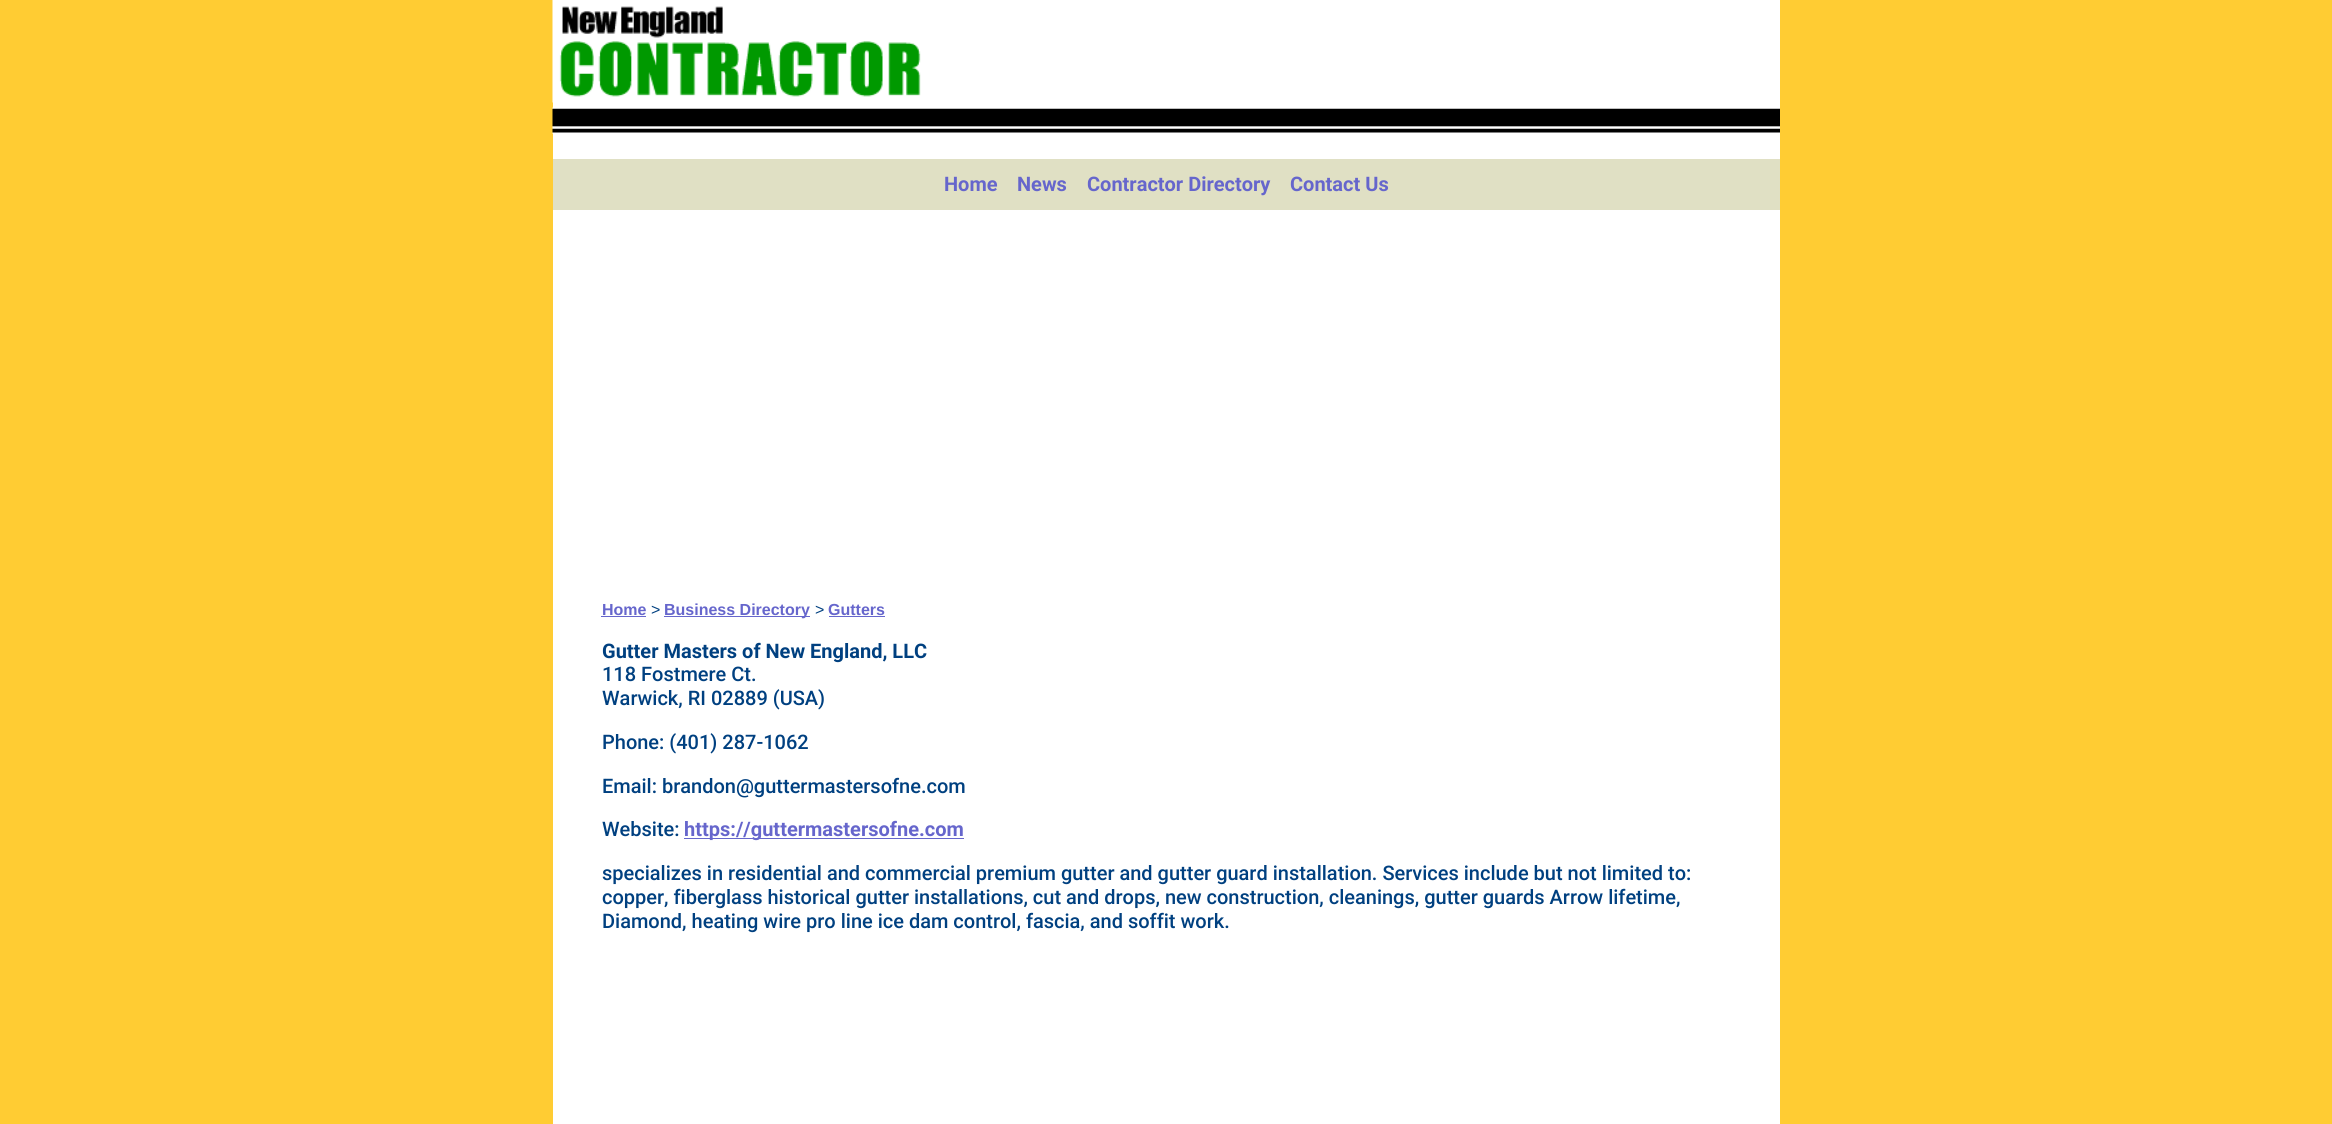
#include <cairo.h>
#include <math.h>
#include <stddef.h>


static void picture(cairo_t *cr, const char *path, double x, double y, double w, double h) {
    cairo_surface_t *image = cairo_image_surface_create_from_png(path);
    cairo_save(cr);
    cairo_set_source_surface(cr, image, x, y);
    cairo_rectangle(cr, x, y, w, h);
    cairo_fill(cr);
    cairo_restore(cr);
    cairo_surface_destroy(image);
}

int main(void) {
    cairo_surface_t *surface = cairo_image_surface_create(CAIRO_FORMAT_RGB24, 2332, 1124);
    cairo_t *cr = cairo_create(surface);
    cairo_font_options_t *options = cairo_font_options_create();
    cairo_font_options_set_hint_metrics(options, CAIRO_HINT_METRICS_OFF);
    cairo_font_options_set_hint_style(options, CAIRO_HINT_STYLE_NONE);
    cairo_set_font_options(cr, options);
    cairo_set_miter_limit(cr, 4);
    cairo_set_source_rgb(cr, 1, 0.8, 0.2);
    cairo_paint(cr);
    cairo_set_source_rgb(cr, 1, 1, 1);
    cairo_rectangle(cr, 553, 0, 1227, 1124);
    cairo_fill(cr);
    picture(cr, "img1.png", 552, 0, 369, 103);
    picture(cr, "img2.png", 552, 107, 1228, 27);
    cairo_set_source_rgb(cr, 0.878, 0.878, 0.769);
    cairo_rectangle(cr, 553, 159, 1227, 51);
    cairo_fill(cr);
    cairo_select_font_face(cr, "Roboto", CAIRO_FONT_SLANT_NORMAL, CAIRO_FONT_WEIGHT_BOLD);
    cairo_set_font_size(cr, 20);
    cairo_set_source_rgb(cr, 0.4, 0.4, 0.8);
    cairo_move_to(cr, 944, 191);
    cairo_show_text(cr, "Home");
    cairo_move_to(cr, 1017, 191);
    cairo_show_text(cr, "News");
    cairo_move_to(cr, 1087, 191);
    cairo_show_text(cr, "Contractor Directory");
    cairo_move_to(cr, 1290, 191);
    cairo_show_text(cr, "Contact Us");
    cairo_select_font_face(cr, "Liberation Sans", CAIRO_FONT_SLANT_NORMAL, CAIRO_FONT_WEIGHT_BOLD);
    cairo_set_font_size(cr, 16);
    cairo_move_to(cr, 602, 615);
    cairo_show_text(cr, "Home");
    cairo_rectangle(cr, 601, 616, 45, 1);
    cairo_fill(cr);
    cairo_select_font_face(cr, "Liberation Sans", CAIRO_FONT_SLANT_NORMAL, CAIRO_FONT_WEIGHT_NORMAL);
    cairo_set_source_rgb(cr, 0, 0.251, 0.502);
    cairo_move_to(cr, 651, 615);
    cairo_show_text(cr, ">");
    cairo_set_source_rgb(cr, 0.4, 0.4, 0.8);
    cairo_rectangle(cr, 664, 616, 146, 1);
    cairo_fill(cr);
    cairo_select_font_face(cr, "Liberation Sans", CAIRO_FONT_SLANT_NORMAL, CAIRO_FONT_WEIGHT_BOLD);
    cairo_move_to(cr, 664, 615);
    cairo_show_text(cr, "Business Directory");
    cairo_select_font_face(cr, "Liberation Sans", CAIRO_FONT_SLANT_NORMAL, CAIRO_FONT_WEIGHT_NORMAL);
    cairo_set_source_rgb(cr, 0, 0.251, 0.502);
    cairo_move_to(cr, 815, 615);
    cairo_show_text(cr, ">");
    cairo_select_font_face(cr, "Liberation Sans", CAIRO_FONT_SLANT_NORMAL, CAIRO_FONT_WEIGHT_BOLD);
    cairo_set_source_rgb(cr, 0.4, 0.4, 0.8);
    cairo_move_to(cr, 828, 615);
    cairo_show_text(cr, "Gutters");
    cairo_rectangle(cr, 829, 616, 56, 1);
    cairo_fill(cr);
    cairo_select_font_face(cr, "Roboto", CAIRO_FONT_SLANT_NORMAL, CAIRO_FONT_WEIGHT_BOLD);
    cairo_set_font_size(cr, 20);
    cairo_set_source_rgb(cr, 0, 0.251, 0.502);
    cairo_move_to(cr, 602, 658);
    cairo_show_text(cr, "Gutter Masters of New England, LLC");
    cairo_select_font_face(cr, "Roboto Medium", CAIRO_FONT_SLANT_NORMAL, CAIRO_FONT_WEIGHT_NORMAL);
    cairo_move_to(cr, 602, 681);
    cairo_show_text(cr, "118 Fostmere Ct.");
    cairo_move_to(cr, 602, 705);
    cairo_show_text(cr, "Warwick, RI 02889 (USA)");
    cairo_move_to(cr, 602, 749);
    cairo_show_text(cr, "Phone: (401) 287-1062");
    cairo_move_to(cr, 602, 793);
    cairo_show_text(cr, "Email: brandon@guttermastersofne.com");
    cairo_move_to(cr, 602, 836);
    cairo_show_text(cr, "Website:");
    cairo_set_source_rgb(cr, 0.4, 0.4, 0.8);
    cairo_rectangle(cr, 684, 838, 280, 1);
    cairo_fill(cr);
    cairo_select_font_face(cr, "Roboto", CAIRO_FONT_SLANT_NORMAL, CAIRO_FONT_WEIGHT_BOLD);
    cairo_move_to(cr, 684, 836);
    cairo_show_text(cr, "https://guttermastersofne.com");
    cairo_select_font_face(cr, "Roboto Medium", CAIRO_FONT_SLANT_NORMAL, CAIRO_FONT_WEIGHT_NORMAL);
    cairo_set_source_rgb(cr, 0, 0.251, 0.502);
    cairo_move_to(cr, 602, 880);
    cairo_show_text(cr, "specializes in residential and commercial premium gutter and gutter guard installation. Services include but not limited to:");
    cairo_move_to(cr, 602, 904);
    cairo_show_text(cr, "copper, fiberglass historical gutter installations, cut and drops, new construction, cleanings, gutter guards Arrow lifetime,");
    cairo_move_to(cr, 602, 928);
    cairo_show_text(cr, "Diamond, heating wire pro line ice dam control, fascia, and soffit work.");
    cairo_surface_write_to_png(surface, "page.png");
    cairo_font_options_destroy(options);
    cairo_destroy(cr);
    cairo_surface_destroy(surface);
    return 0;
}
